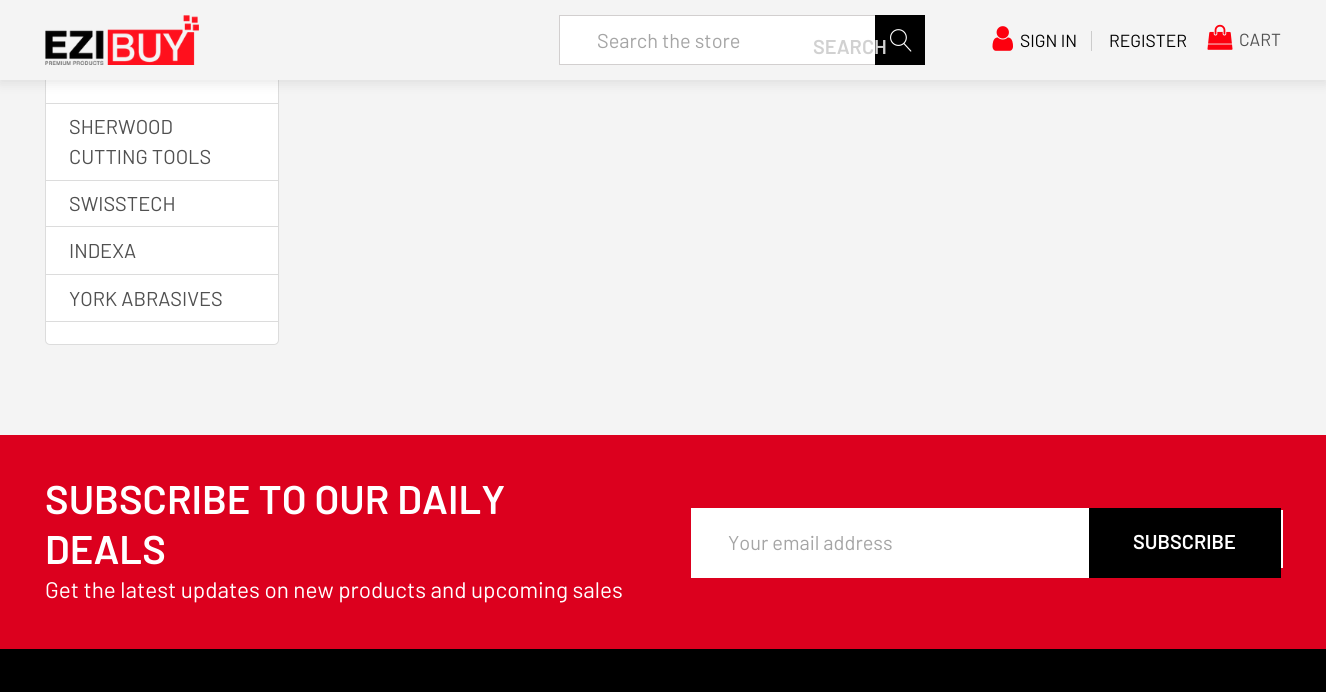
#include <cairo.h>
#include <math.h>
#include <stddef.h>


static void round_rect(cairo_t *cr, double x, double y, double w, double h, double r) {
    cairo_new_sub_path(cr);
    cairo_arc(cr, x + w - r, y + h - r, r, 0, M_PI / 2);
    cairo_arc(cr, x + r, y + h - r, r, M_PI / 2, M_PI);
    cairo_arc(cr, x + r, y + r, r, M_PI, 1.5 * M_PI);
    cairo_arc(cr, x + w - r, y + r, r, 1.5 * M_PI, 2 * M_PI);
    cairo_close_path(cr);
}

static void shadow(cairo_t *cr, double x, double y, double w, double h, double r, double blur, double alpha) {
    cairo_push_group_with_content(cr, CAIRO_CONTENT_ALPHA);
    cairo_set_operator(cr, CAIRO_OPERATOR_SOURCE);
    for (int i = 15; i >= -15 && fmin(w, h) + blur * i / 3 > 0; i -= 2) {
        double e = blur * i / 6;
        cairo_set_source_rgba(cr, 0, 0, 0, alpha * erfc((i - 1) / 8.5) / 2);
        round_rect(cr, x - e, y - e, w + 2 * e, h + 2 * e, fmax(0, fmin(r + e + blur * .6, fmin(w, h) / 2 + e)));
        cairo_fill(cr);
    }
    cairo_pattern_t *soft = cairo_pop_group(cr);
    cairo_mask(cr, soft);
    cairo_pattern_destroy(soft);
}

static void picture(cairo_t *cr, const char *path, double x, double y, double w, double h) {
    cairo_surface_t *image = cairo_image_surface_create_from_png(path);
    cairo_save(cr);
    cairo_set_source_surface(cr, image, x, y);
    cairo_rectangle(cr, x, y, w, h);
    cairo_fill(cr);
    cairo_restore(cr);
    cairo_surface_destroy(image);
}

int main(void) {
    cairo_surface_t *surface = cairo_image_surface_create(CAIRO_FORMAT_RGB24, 1326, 692);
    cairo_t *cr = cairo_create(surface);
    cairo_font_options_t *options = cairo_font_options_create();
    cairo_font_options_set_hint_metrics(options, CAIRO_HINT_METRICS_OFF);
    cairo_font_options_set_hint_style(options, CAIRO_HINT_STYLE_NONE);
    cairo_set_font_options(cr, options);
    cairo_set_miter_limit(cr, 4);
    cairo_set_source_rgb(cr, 0.957, 0.957, 0.957);
    cairo_paint(cr);
    cairo_set_source_rgb(cr, 1, 1, 1);
    round_rect(cr, 45.5, -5.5, 233, 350, 4.5);
    cairo_fill_preserve(cr);
    cairo_set_source_rgb(cr, 0.863, 0.863, 0.863);
    cairo_set_line_width(cr, 1);
    cairo_stroke(cr);
    cairo_set_source_rgb(cr, 0, 0, 0);
    shadow(cr, 0, 3, 1326, 80, 0, 6, 0.1);
    cairo_set_source_rgb(cr, 0.957, 0.957, 0.957);
    cairo_rectangle(cr, 0, 0, 1326, 80);
    cairo_fill(cr);
    picture(cr, "img1.png", 45, 15, 154, 50);
    cairo_set_source_rgb(cr, 1, 1, 1);
    cairo_rectangle(cr, 560, 16, 315, 48);
    cairo_fill(cr);
    cairo_rectangle(cr, 559.5, 15.5, 365, 49);
    cairo_set_source_rgb(cr, 0.824, 0.812, 0.812);
    cairo_stroke(cr);
    cairo_select_font_face(cr, "Barlow", CAIRO_FONT_SLANT_NORMAL, CAIRO_FONT_WEIGHT_NORMAL);
    cairo_set_font_size(cr, 20);
    cairo_set_source_rgb(cr, 0.647, 0.647, 0.647);
    cairo_move_to(cr, 597, 48);
    cairo_show_text(cr, "Search the store");
    cairo_set_source_rgb(cr, 0, 0, 0);
    cairo_rectangle(cr, 875, 15, 50, 50);
    cairo_fill(cr);
    cairo_select_font_face(cr, "Barlow SemiBold", CAIRO_FONT_SLANT_NORMAL, CAIRO_FONT_WEIGHT_NORMAL);
    cairo_set_source_rgb(cr, 0.82, 0.82, 0.82);
    cairo_move_to(cr, 813, 54);
    cairo_show_text(cr, "SEARCH");
    picture(cr, "img2.png", 890, 29, 22, 23);
    picture(cr, "img3.png", 992, 26, 21, 25);
    cairo_select_font_face(cr, "Barlow", CAIRO_FONT_SLANT_NORMAL, CAIRO_FONT_WEIGHT_NORMAL);
    cairo_set_font_size(cr, 17.5);
    cairo_set_source_rgb(cr, 0, 0, 0);
    cairo_move_to(cr, 1020, 47);
    cairo_show_text(cr, "SIGN IN");
    cairo_set_source_rgb(cr, 0.8, 0.8, 0.8);
    cairo_rectangle(cr, 1091, 31, 1, 20);
    cairo_fill(cr);
    cairo_set_source_rgb(cr, 0, 0, 0);
    cairo_move_to(cr, 1109, 47);
    cairo_show_text(cr, "REGISTER");
    picture(cr, "img4.png", 1207, 24, 26, 26);
    cairo_set_source_rgb(cr, 0.314, 0.314, 0.314);
    cairo_move_to(cr, 1239, 46);
    cairo_show_text(cr, "CART");
    cairo_set_source_rgb(cr, 0.863, 0.863, 0.863);
    cairo_rectangle(cr, 46, 103, 232, 1);
    cairo_fill(cr);
    cairo_set_font_size(cr, 20);
    cairo_set_source_rgb(cr, 0.314, 0.314, 0.314);
    cairo_move_to(cr, 69, 134);
    cairo_show_text(cr, "SHERWOOD");
    cairo_move_to(cr, 69, 164);
    cairo_show_text(cr, "CUTTING TOOLS");
    cairo_set_source_rgb(cr, 0.863, 0.863, 0.863);
    cairo_rectangle(cr, 46, 180, 232, 1);
    cairo_fill(cr);
    cairo_set_source_rgb(cr, 0.314, 0.314, 0.314);
    cairo_move_to(cr, 69, 211);
    cairo_show_text(cr, "SWISSTECH");
    cairo_set_source_rgb(cr, 0.863, 0.863, 0.863);
    cairo_rectangle(cr, 46, 226, 232, 1);
    cairo_fill(cr);
    cairo_set_source_rgb(cr, 0.314, 0.314, 0.314);
    cairo_move_to(cr, 69, 258);
    cairo_show_text(cr, "INDEXA");
    cairo_set_source_rgb(cr, 0.863, 0.863, 0.863);
    cairo_rectangle(cr, 46, 274, 232, 1);
    cairo_fill(cr);
    cairo_set_source_rgb(cr, 0.314, 0.314, 0.314);
    cairo_move_to(cr, 69, 306);
    cairo_show_text(cr, "YORK ABRASIVES");
    cairo_set_source_rgb(cr, 0.863, 0.863, 0.863);
    cairo_rectangle(cr, 46, 321, 232, 1);
    cairo_fill(cr);
    cairo_set_source_rgb(cr, 0, 0, 0);
    cairo_rectangle(cr, 0, 649, 1326, 43);
    cairo_fill(cr);
    cairo_set_source_rgb(cr, 0.863, 0, 0.118);
    cairo_rectangle(cr, 0, 435, 1326, 214);
    cairo_fill(cr);
    cairo_select_font_face(cr, "Barlow SemiBold", CAIRO_FONT_SLANT_NORMAL, CAIRO_FONT_WEIGHT_NORMAL);
    cairo_set_font_size(cr, 40);
    cairo_set_source_rgb(cr, 1, 1, 1);
    cairo_move_to(cr, 45, 514);
    cairo_show_text(cr, "SUBSCRIBE TO OUR DAILY");
    cairo_move_to(cr, 45, 564);
    cairo_show_text(cr, "DEALS");
    cairo_select_font_face(cr, "Barlow", CAIRO_FONT_SLANT_NORMAL, CAIRO_FONT_WEIGHT_NORMAL);
    cairo_set_font_size(cr, 22.5);
    cairo_move_to(cr, 45, 598);
    cairo_show_text(cr, "Get the latest updates on new products and upcoming sales");
    cairo_rectangle(cr, 691, 508, 398, 70);
    cairo_fill(cr);
    cairo_set_font_size(cr, 20);
    cairo_set_source_rgb(cr, 0.647, 0.647, 0.647);
    cairo_move_to(cr, 728, 550);
    cairo_show_text(cr, "Your email address");
    cairo_set_source_rgb(cr, 0, 0, 0);
    cairo_rectangle(cr, 1089, 508, 192, 70);
    cairo_fill(cr);
    cairo_select_font_face(cr, "Barlow SemiBold", CAIRO_FONT_SLANT_NORMAL, CAIRO_FONT_WEIGHT_NORMAL);
    cairo_set_source_rgb(cr, 1, 1, 1);
    cairo_move_to(cr, 1133, 549);
    cairo_show_text(cr, "SUBSCRIBE");
    cairo_rectangle(cr, 1281, 510, 2, 58);
    cairo_fill(cr);
    cairo_surface_write_to_png(surface, "page.png");
    cairo_font_options_destroy(options);
    cairo_destroy(cr);
    cairo_surface_destroy(surface);
    return 0;
}
